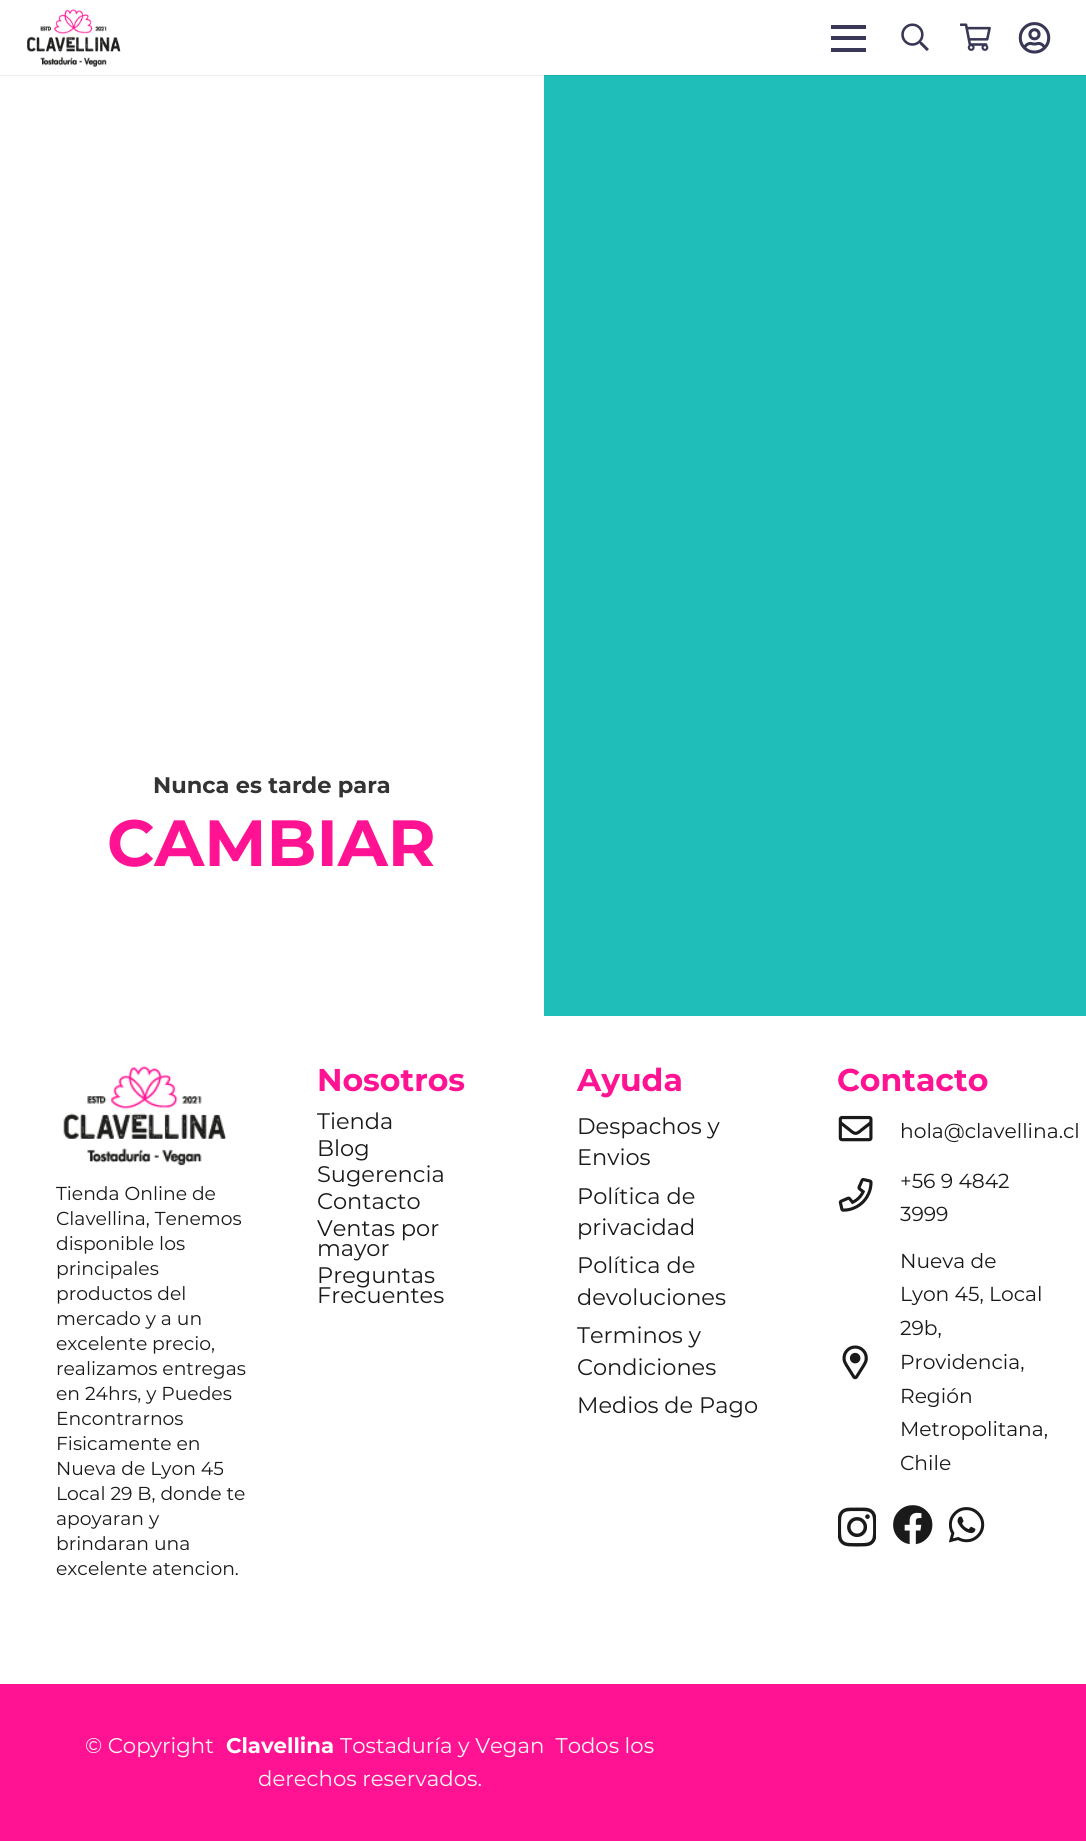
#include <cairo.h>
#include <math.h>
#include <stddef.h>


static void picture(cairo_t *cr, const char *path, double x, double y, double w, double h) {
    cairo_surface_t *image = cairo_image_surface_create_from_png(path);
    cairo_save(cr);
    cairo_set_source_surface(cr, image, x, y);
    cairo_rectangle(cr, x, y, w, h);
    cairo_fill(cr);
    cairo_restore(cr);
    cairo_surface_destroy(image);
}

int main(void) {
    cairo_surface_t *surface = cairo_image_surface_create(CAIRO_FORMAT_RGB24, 1086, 1841);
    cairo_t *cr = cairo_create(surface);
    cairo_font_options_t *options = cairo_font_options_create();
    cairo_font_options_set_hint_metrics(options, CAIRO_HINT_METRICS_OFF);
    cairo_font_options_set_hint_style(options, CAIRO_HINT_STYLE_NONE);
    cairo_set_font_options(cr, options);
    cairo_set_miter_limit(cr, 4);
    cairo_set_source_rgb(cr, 1, 1, 1);
    cairo_paint(cr);
    cairo_set_source_rgb(cr, 0.922, 0.922, 0.922);
    cairo_rectangle(cr, 0, 75, 544, 1);
    cairo_fill(cr);
    picture(cr, "img1.png", 27, 9, 94, 58);
    cairo_set_source_rgb(cr, 0.22, 0.22, 0.337);
    cairo_rectangle(cr, 831, 36, 35, 4);
    cairo_fill(cr);
    cairo_rectangle(cr, 831, 25, 35, 4);
    cairo_fill(cr);
    cairo_rectangle(cr, 831, 48, 35, 4);
    cairo_fill(cr);
    picture(cr, "img2.png", 901, 23, 28, 28);
    picture(cr, "img3.png", 960, 23, 31, 28);
    picture(cr, "img4.png", 1018, 22, 33, 32);
    cairo_select_font_face(cr, "Montserrat", CAIRO_FONT_SLANT_NORMAL, CAIRO_FONT_WEIGHT_BOLD);
    cairo_set_font_size(cr, 22.5);
    cairo_set_source_rgb(cr, 0.2, 0.2, 0.2);
    cairo_move_to(cr, 153, 793);
    cairo_show_text(cr, "Nunca es tarde para");
    cairo_set_font_size(cr, 65.25);
    cairo_set_source_rgb(cr, 1, 0.078, 0.576);
    cairo_move_to(cr, 107, 866);
    cairo_show_text(cr, "CAMBIAR");
    cairo_set_source_rgb(cr, 0.122, 0.745, 0.722);
    cairo_rectangle(cr, 544, 76, 542, 940);
    cairo_fill(cr);
    cairo_set_source_rgb(cr, 0.114, 0.686, 0.663);
    cairo_rectangle(cr, 544, 75, 542, 1);
    cairo_fill(cr);
    picture(cr, "img5.png", 63, 1066, 164, 100);
    cairo_select_font_face(cr, "Montserrat", CAIRO_FONT_SLANT_NORMAL, CAIRO_FONT_WEIGHT_NORMAL);
    cairo_set_font_size(cr, 18.75);
    cairo_set_source_rgb(cr, 0.102, 0.102, 0.102);
    cairo_move_to(cr, 56, 1200);
    cairo_show_text(cr, "Tienda Online de");
    cairo_move_to(cr, 56, 1225);
    cairo_show_text(cr, "Clavellina, Tenemos");
    cairo_move_to(cr, 56, 1250);
    cairo_show_text(cr, "disponible los");
    cairo_move_to(cr, 56, 1275);
    cairo_show_text(cr, "principales");
    cairo_move_to(cr, 56, 1300);
    cairo_show_text(cr, "productos del");
    cairo_move_to(cr, 56, 1325);
    cairo_show_text(cr, "mercado y a un");
    cairo_move_to(cr, 56, 1350);
    cairo_show_text(cr, "excelente precio,");
    cairo_move_to(cr, 56, 1375);
    cairo_show_text(cr, "realizamos entregas");
    cairo_move_to(cr, 56, 1400);
    cairo_show_text(cr, "en 24hrs, y Puedes");
    cairo_move_to(cr, 56, 1425);
    cairo_show_text(cr, "Encontrarnos");
    cairo_move_to(cr, 56, 1450);
    cairo_show_text(cr, "Fisicamente en");
    cairo_move_to(cr, 56, 1475);
    cairo_show_text(cr, "Nueva de Lyon 45");
    cairo_move_to(cr, 56, 1500);
    cairo_show_text(cr, "Local 29 B, donde te");
    cairo_move_to(cr, 56, 1525);
    cairo_show_text(cr, "apoyaran y");
    cairo_move_to(cr, 56, 1550);
    cairo_show_text(cr, "brindaran una");
    cairo_move_to(cr, 56, 1575);
    cairo_show_text(cr, "excelente atencion.");
    cairo_select_font_face(cr, "Montserrat", CAIRO_FONT_SLANT_NORMAL, CAIRO_FONT_WEIGHT_BOLD);
    cairo_set_font_size(cr, 31.5);
    cairo_set_source_rgb(cr, 1, 0.078, 0.576);
    cairo_move_to(cr, 317, 1091);
    cairo_show_text(cr, "Nosotros");
    cairo_select_font_face(cr, "Montserrat", CAIRO_FONT_SLANT_NORMAL, CAIRO_FONT_WEIGHT_NORMAL);
    cairo_set_font_size(cr, 22.5);
    cairo_set_source_rgb(cr, 0.102, 0.102, 0.102);
    cairo_move_to(cr, 317, 1129);
    cairo_show_text(cr, "Tienda");
    cairo_move_to(cr, 317, 1156);
    cairo_show_text(cr, "Blog");
    cairo_move_to(cr, 317, 1182);
    cairo_show_text(cr, "Sugerencia");
    cairo_move_to(cr, 317, 1209);
    cairo_show_text(cr, "Contacto");
    cairo_move_to(cr, 317, 1236);
    cairo_show_text(cr, "Ventas por");
    cairo_move_to(cr, 317, 1256);
    cairo_show_text(cr, "mayor");
    cairo_move_to(cr, 317, 1283);
    cairo_show_text(cr, "Preguntas");
    cairo_move_to(cr, 317, 1303);
    cairo_show_text(cr, "Frecuentes");
    cairo_select_font_face(cr, "Montserrat", CAIRO_FONT_SLANT_NORMAL, CAIRO_FONT_WEIGHT_BOLD);
    cairo_set_font_size(cr, 31.5);
    cairo_set_source_rgb(cr, 1, 0.078, 0.576);
    cairo_move_to(cr, 577, 1091);
    cairo_show_text(cr, "Ayuda");
    cairo_select_font_face(cr, "Montserrat", CAIRO_FONT_SLANT_NORMAL, CAIRO_FONT_WEIGHT_NORMAL);
    cairo_set_font_size(cr, 22.5);
    cairo_set_source_rgb(cr, 0.102, 0.102, 0.102);
    cairo_move_to(cr, 577, 1134);
    cairo_show_text(cr, "Despachos y");
    cairo_move_to(cr, 577, 1165);
    cairo_show_text(cr, "Envios");
    cairo_move_to(cr, 577, 1204);
    cairo_show_text(cr, "Política de");
    cairo_move_to(cr, 577, 1235);
    cairo_show_text(cr, "privacidad");
    cairo_move_to(cr, 577, 1273);
    cairo_show_text(cr, "Política de");
    cairo_move_to(cr, 577, 1305);
    cairo_show_text(cr, "devoluciones");
    cairo_move_to(cr, 577, 1343);
    cairo_show_text(cr, "Terminos y");
    cairo_move_to(cr, 577, 1375);
    cairo_show_text(cr, "Condiciones");
    cairo_move_to(cr, 577, 1413);
    cairo_show_text(cr, "Medios de Pago");
    cairo_select_font_face(cr, "Montserrat", CAIRO_FONT_SLANT_NORMAL, CAIRO_FONT_WEIGHT_BOLD);
    cairo_set_font_size(cr, 31.5);
    cairo_set_source_rgb(cr, 1, 0.078, 0.576);
    cairo_move_to(cr, 837, 1091);
    cairo_show_text(cr, "Contacto");
    picture(cr, "img6.png", 838, 1115, 35, 27);
    cairo_select_font_face(cr, "Montserrat", CAIRO_FONT_SLANT_NORMAL, CAIRO_FONT_WEIGHT_NORMAL);
    cairo_set_font_size(cr, 20.25);
    cairo_set_source_rgb(cr, 0.102, 0.102, 0.102);
    cairo_move_to(cr, 900, 1138);
    cairo_show_text(cr, "hola@clavellina.cl");
    picture(cr, "img7.png", 838, 1178, 35, 34);
    cairo_move_to(cr, 900, 1188);
    cairo_show_text(cr, "+56 9 4842");
    cairo_move_to(cr, 900, 1221);
    cairo_show_text(cr, "3999");
    picture(cr, "img8.png", 842, 1345, 26, 35);
    cairo_move_to(cr, 900, 1268);
    cairo_show_text(cr, "Nueva de");
    cairo_move_to(cr, 900, 1301);
    cairo_show_text(cr, "Lyon 45, Local");
    cairo_move_to(cr, 900, 1335);
    cairo_show_text(cr, "29b,");
    cairo_move_to(cr, 900, 1369);
    cairo_show_text(cr, "Providencia,");
    cairo_move_to(cr, 900, 1403);
    cairo_show_text(cr, "Región");
    cairo_move_to(cr, 900, 1436);
    cairo_show_text(cr, "Metropolitana,");
    cairo_move_to(cr, 900, 1470);
    cairo_show_text(cr, "Chile");
    picture(cr, "img9.png", 838, 1507, 38, 40);
    picture(cr, "img10.png", 893, 1505, 40, 40);
    picture(cr, "img11.png", 949, 1507, 36, 36);
    cairo_set_source_rgb(cr, 1, 0.078, 0.576);
    cairo_rectangle(cr, 0, 1684, 1086, 157);
    cairo_fill(cr);
    cairo_set_font_size(cr, 21.25);
    cairo_set_source_rgb(cr, 0.961, 0.961, 0.961);
    cairo_move_to(cr, 85, 1753);
    cairo_show_text(cr, "© Copyright");
    cairo_select_font_face(cr, "Montserrat", CAIRO_FONT_SLANT_NORMAL, CAIRO_FONT_WEIGHT_BOLD);
    cairo_set_source_rgb(cr, 1, 1, 1);
    cairo_move_to(cr, 226, 1753);
    cairo_show_text(cr, "Clavellina");
    cairo_select_font_face(cr, "Montserrat", CAIRO_FONT_SLANT_NORMAL, CAIRO_FONT_WEIGHT_NORMAL);
    cairo_set_source_rgb(cr, 0.961, 0.961, 0.961);
    cairo_move_to(cr, 340, 1753);
    cairo_show_text(cr, "Tostaduría y Vegan  Todos los");
    cairo_move_to(cr, 258, 1786);
    cairo_show_text(cr, "derechos reservados.");
    cairo_surface_write_to_png(surface, "page.png");
    cairo_font_options_destroy(options);
    cairo_destroy(cr);
    cairo_surface_destroy(surface);
    return 0;
}
